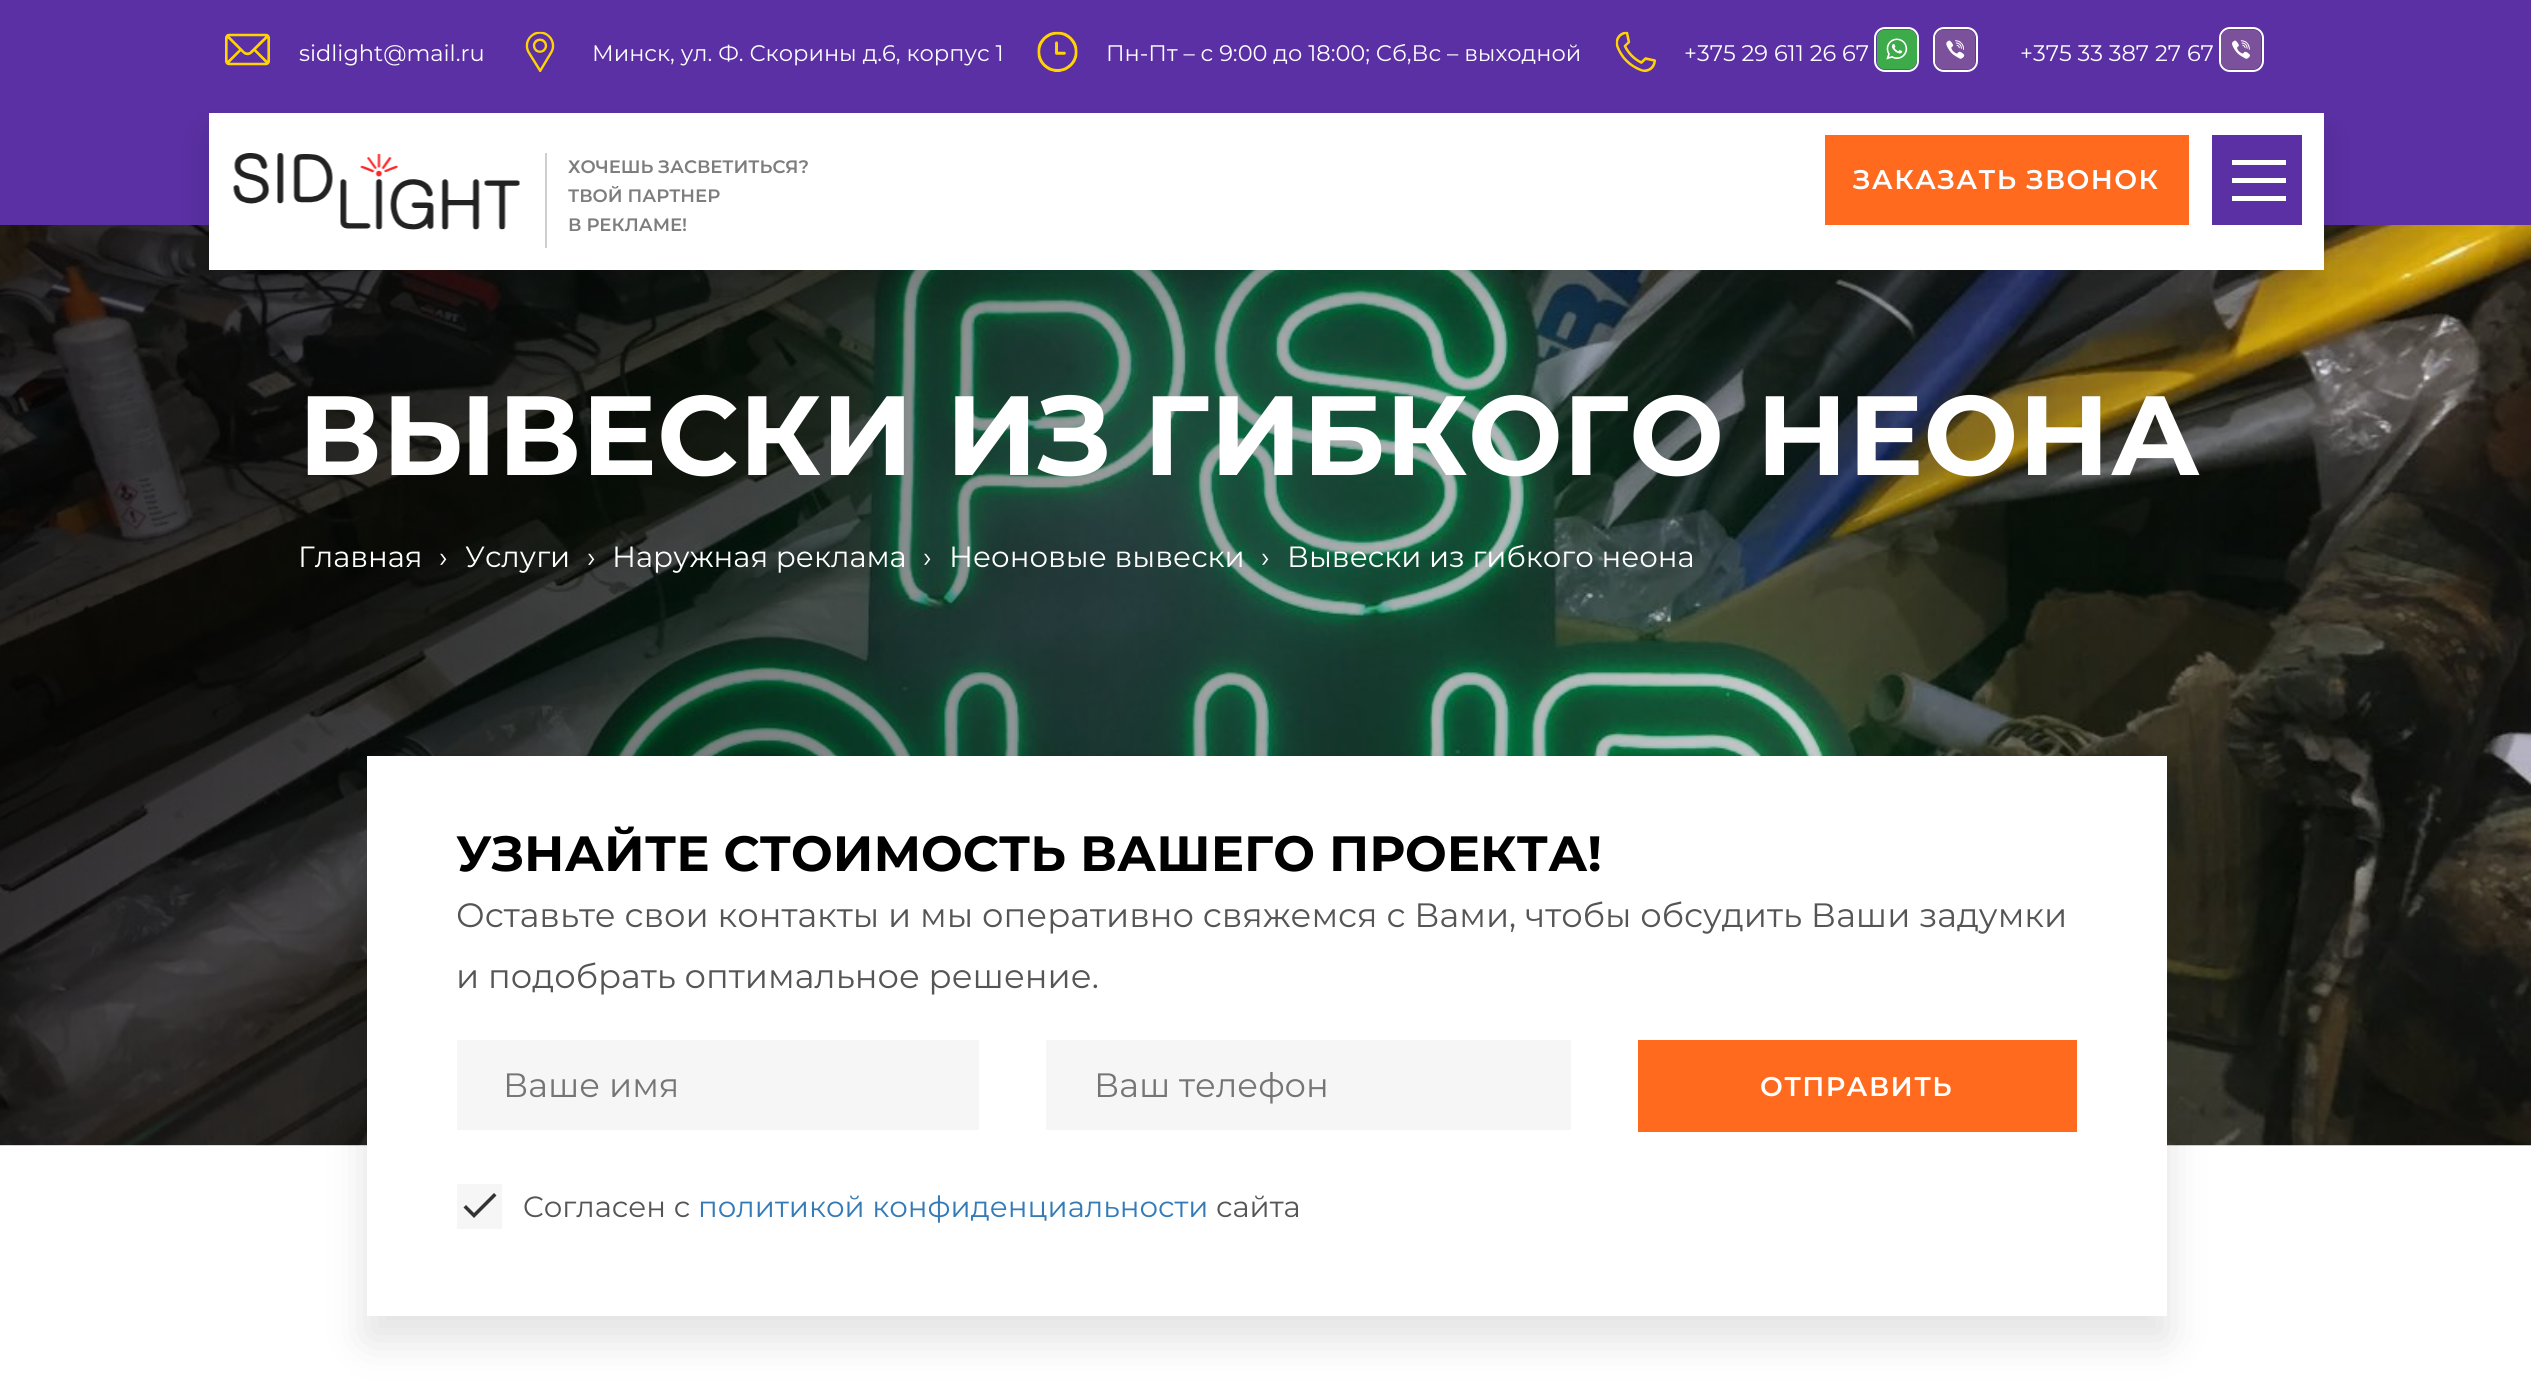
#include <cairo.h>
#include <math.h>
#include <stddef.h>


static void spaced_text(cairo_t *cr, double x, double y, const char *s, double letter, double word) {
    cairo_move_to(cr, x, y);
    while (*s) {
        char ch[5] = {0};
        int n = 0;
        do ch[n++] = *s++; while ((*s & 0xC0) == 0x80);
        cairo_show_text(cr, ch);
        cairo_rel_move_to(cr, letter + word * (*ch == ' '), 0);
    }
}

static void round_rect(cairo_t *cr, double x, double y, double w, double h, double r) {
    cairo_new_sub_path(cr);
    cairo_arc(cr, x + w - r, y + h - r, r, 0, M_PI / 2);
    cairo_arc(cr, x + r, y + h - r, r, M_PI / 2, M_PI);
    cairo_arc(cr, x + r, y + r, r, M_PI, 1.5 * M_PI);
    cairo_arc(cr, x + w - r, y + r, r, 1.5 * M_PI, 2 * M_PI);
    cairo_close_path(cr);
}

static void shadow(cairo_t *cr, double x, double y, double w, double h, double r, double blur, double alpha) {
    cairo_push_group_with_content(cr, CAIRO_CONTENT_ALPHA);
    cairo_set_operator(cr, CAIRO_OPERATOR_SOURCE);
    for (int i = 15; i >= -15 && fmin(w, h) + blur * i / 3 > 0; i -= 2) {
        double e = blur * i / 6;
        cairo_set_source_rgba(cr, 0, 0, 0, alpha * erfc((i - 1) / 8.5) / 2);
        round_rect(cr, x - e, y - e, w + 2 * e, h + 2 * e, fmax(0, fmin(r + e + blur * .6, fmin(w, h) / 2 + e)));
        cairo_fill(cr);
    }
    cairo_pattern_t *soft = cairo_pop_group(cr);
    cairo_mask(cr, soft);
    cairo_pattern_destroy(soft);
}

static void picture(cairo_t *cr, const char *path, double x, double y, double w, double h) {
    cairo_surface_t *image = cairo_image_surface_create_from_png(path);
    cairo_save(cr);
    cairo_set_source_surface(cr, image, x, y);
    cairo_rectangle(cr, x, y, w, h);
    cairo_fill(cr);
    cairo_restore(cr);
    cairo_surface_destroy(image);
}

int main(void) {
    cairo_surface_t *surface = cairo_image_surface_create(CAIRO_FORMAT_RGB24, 2531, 1389);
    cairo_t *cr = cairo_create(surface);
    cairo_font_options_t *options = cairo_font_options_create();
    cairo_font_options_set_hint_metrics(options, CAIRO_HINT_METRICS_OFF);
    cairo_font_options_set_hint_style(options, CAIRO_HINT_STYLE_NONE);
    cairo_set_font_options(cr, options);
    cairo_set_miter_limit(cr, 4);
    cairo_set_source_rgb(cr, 1, 1, 1);
    cairo_paint(cr);
    cairo_set_source_rgb(cr, 0.357, 0.188, 0.647);
    cairo_rectangle(cr, 0, 0, 2531, 225);
    cairo_fill(cr);
    picture(cr, "img1.png", 225, 33, 45, 33);
    cairo_select_font_face(cr, "Montserrat", CAIRO_FONT_SLANT_NORMAL, CAIRO_FONT_WEIGHT_NORMAL);
    cairo_set_font_size(cr, 22.5);
    cairo_set_source_rgb(cr, 1, 1, 1);
    cairo_move_to(cr, 299, 61);
    cairo_show_text(cr, "sidlight@mail.ru");
    picture(cr, "img2.png", 525, 31, 30, 41);
    cairo_move_to(cr, 592, 61);
    cairo_show_text(cr, "Минск, ул. Ф. Скорины д.6, корпус 1");
    picture(cr, "img3.png", 1037, 31, 41, 41);
    cairo_move_to(cr, 1106, 61);
    cairo_show_text(cr, "Пн-Пт – с 9:00 до 18:00; Сб,Вс – выходной");
    picture(cr, "img4.png", 1615, 31, 41, 41);
    cairo_move_to(cr, 1684, 61);
    cairo_show_text(cr, "+375 29 611 26 67");
    round_rect(cr, 1875, 28, 43, 43, 10);
    cairo_stroke(cr);
    picture(cr, "img5.png", 1876, 29, 41, 41);
    round_rect(cr, 1934, 28, 43, 43, 10);
    cairo_stroke(cr);
    picture(cr, "img6.png", 1935, 29, 41, 41);
    cairo_move_to(cr, 2020, 61);
    cairo_show_text(cr, "+375 33 387 27 67");
    round_rect(cr, 2220, 28, 43, 43, 10);
    cairo_stroke(cr);
    picture(cr, "img7.png", 2221, 29, 40, 41);
    picture(cr, "img9.png", 0, 225, 2531, 921);
    cairo_set_source_rgb(cr, 0, 0, 0);
    shadow(cr, 209, 135, 2115, 158, 0, 22.5, 0.12);
    cairo_set_source_rgb(cr, 1, 1, 1);
    cairo_rectangle(cr, 209, 113, 2115, 157);
    cairo_fill(cr);
    cairo_set_source_rgb(cr, 0.808, 0.808, 0.808);
    cairo_rectangle(cr, 545, 153, 2, 95);
    cairo_fill(cr);
    picture(cr, "img8.png", 233, 153, 287, 77);
    cairo_select_font_face(cr, "Montserrat SemiBold", CAIRO_FONT_SLANT_NORMAL, CAIRO_FONT_WEIGHT_NORMAL);
    cairo_set_font_size(cr, 18);
    cairo_set_source_rgb(cr, 0.49, 0.49, 0.49);
    cairo_move_to(cr, 568, 173);
    cairo_show_text(cr, "ХОЧЕШЬ ЗАСВЕТИТЬСЯ?");
    cairo_move_to(cr, 568, 202);
    cairo_show_text(cr, "ТВОЙ ПАРТНЕР");
    cairo_move_to(cr, 568, 231);
    cairo_show_text(cr, "В РЕКЛАМЕ!");
    cairo_set_source_rgb(cr, 1, 0.416, 0.122);
    cairo_rectangle(cr, 1827.5, 137.5, 359, 85);
    cairo_fill_preserve(cr);
    cairo_set_line_width(cr, 5);
    cairo_stroke(cr);
    cairo_set_font_size(cr, 27);
    cairo_set_source_rgb(cr, 1, 1, 1);
    spaced_text(cr, 1853, 189, "ЗАКАЗАТЬ ЗВОНОК", 1.4, 0);
    cairo_set_source_rgb(cr, 0.357, 0.188, 0.647);
    cairo_rectangle(cr, 2212, 135, 90, 90);
    cairo_fill(cr);
    cairo_set_source_rgb(cr, 1, 1, 1);
    cairo_rectangle(cr, 2232, 178, 54, 5);
    cairo_fill(cr);
    cairo_rectangle(cr, 2232, 160, 54, 5);
    cairo_fill(cr);
    cairo_rectangle(cr, 2232, 196, 54, 5);
    cairo_fill(cr);
    cairo_select_font_face(cr, "Montserrat", CAIRO_FONT_SLANT_NORMAL, CAIRO_FONT_WEIGHT_BOLD);
    cairo_set_font_size(cr, 112.5);
    cairo_move_to(cr, 298, 475);
    cairo_show_text(cr, "ВЫВЕСКИ ИЗ ГИБКОГО НЕОНА");
    cairo_select_font_face(cr, "Montserrat", CAIRO_FONT_SLANT_NORMAL, CAIRO_FONT_WEIGHT_NORMAL);
    cairo_set_font_size(cr, 29.25);
    cairo_move_to(cr, 298, 567);
    cairo_show_text(cr, "Главная");
    cairo_move_to(cr, 439, 567);
    cairo_show_text(cr, "›");
    cairo_move_to(cr, 465, 567);
    cairo_show_text(cr, "Услуги");
    cairo_move_to(cr, 587, 567);
    cairo_show_text(cr, "›");
    cairo_move_to(cr, 612, 567);
    cairo_show_text(cr, "Наружная реклама");
    cairo_move_to(cr, 923, 567);
    cairo_show_text(cr, "›");
    cairo_move_to(cr, 949, 567);
    cairo_show_text(cr, "Неоновые вывески");
    cairo_move_to(cr, 1261, 567);
    cairo_show_text(cr, "›");
    cairo_move_to(cr, 1287, 567);
    cairo_show_text(cr, "Вывески из гибкого неона");
    cairo_set_source_rgb(cr, 0, 0, 0);
    shadow(cr, 367, 779, 1800, 560, 0, 22.5, 0.12);
    cairo_set_source_rgb(cr, 1, 1, 1);
    cairo_rectangle(cr, 367, 756, 1800, 560);
    cairo_fill(cr);
    cairo_select_font_face(cr, "Montserrat", CAIRO_FONT_SLANT_NORMAL, CAIRO_FONT_WEIGHT_BOLD);
    cairo_set_font_size(cr, 49.5);
    cairo_set_source_rgb(cr, 0, 0, 0);
    cairo_move_to(cr, 456, 871);
    cairo_show_text(cr, "УЗНАЙТЕ СТОИМОСТЬ ВАШЕГО ПРОЕКТА!");
    cairo_select_font_face(cr, "Montserrat", CAIRO_FONT_SLANT_NORMAL, CAIRO_FONT_WEIGHT_NORMAL);
    cairo_set_font_size(cr, 33.75);
    cairo_set_source_rgb(cr, 0.333, 0.333, 0.333);
    cairo_move_to(cr, 456, 927);
    cairo_show_text(cr, "Оставьте свои контакты и мы оперативно свяжемся с Вами, чтобы обсудить Ваши задумки");
    cairo_move_to(cr, 456, 988);
    cairo_show_text(cr, "и подобрать оптимальное решение.");
    cairo_set_source_rgb(cr, 0.961, 0.961, 0.961);
    cairo_rectangle(cr, 457, 1040, 522, 90);
    cairo_fill(cr);
    cairo_set_source_rgb(cr, 0.459, 0.459, 0.459);
    cairo_move_to(cr, 503, 1097);
    cairo_show_text(cr, "Ваше имя");
    cairo_set_source_rgb(cr, 0.961, 0.961, 0.961);
    cairo_rectangle(cr, 1046, 1040, 525, 90);
    cairo_fill(cr);
    cairo_set_source_rgb(cr, 0.459, 0.459, 0.459);
    cairo_move_to(cr, 1094, 1097);
    cairo_show_text(cr, "Ваш телефон");
    cairo_set_source_rgb(cr, 1, 0.416, 0.122);
    cairo_rectangle(cr, 1640.5, 1042.5, 434, 87);
    cairo_fill_preserve(cr);
    cairo_stroke(cr);
    cairo_select_font_face(cr, "Montserrat SemiBold", CAIRO_FONT_SLANT_NORMAL, CAIRO_FONT_WEIGHT_NORMAL);
    cairo_set_font_size(cr, 27);
    cairo_set_source_rgb(cr, 1, 1, 1);
    spaced_text(cr, 1760, 1096, "ОТПРАВИТЬ", 1.4, 0);
    cairo_set_source_rgb(cr, 0.961, 0.961, 0.961);
    cairo_rectangle(cr, 457, 1184, 45, 45);
    cairo_fill(cr);
    cairo_set_source_rgb(cr, 0.2, 0.2, 0.2);
    cairo_new_path(cr);
    cairo_move_to(cr, 474, 1213);
    cairo_line_to(cr, 494, 1193);
    cairo_line_to(cr, 496.5, 1195.5);
    cairo_line_to(cr, 474, 1218);
    cairo_line_to(cr, 463.5, 1207.5);
    cairo_line_to(cr, 466, 1205);
    cairo_close_path(cr);
    cairo_fill(cr);
    cairo_select_font_face(cr, "Montserrat", CAIRO_FONT_SLANT_NORMAL, CAIRO_FONT_WEIGHT_NORMAL);
    cairo_set_font_size(cr, 29.25);
    cairo_set_source_rgb(cr, 0.333, 0.333, 0.333);
    cairo_move_to(cr, 523, 1217);
    cairo_show_text(cr, "Cогласен с");
    cairo_set_source_rgb(cr, 0.2, 0.478, 0.718);
    cairo_move_to(cr, 698, 1217);
    cairo_show_text(cr, "политикой конфиденциальности");
    cairo_set_source_rgb(cr, 0.333, 0.333, 0.333);
    cairo_move_to(cr, 1216, 1217);
    cairo_show_text(cr, "сайта");
    cairo_surface_write_to_png(surface, "page.png");
    cairo_font_options_destroy(options);
    cairo_destroy(cr);
    cairo_surface_destroy(surface);
    return 0;
}
